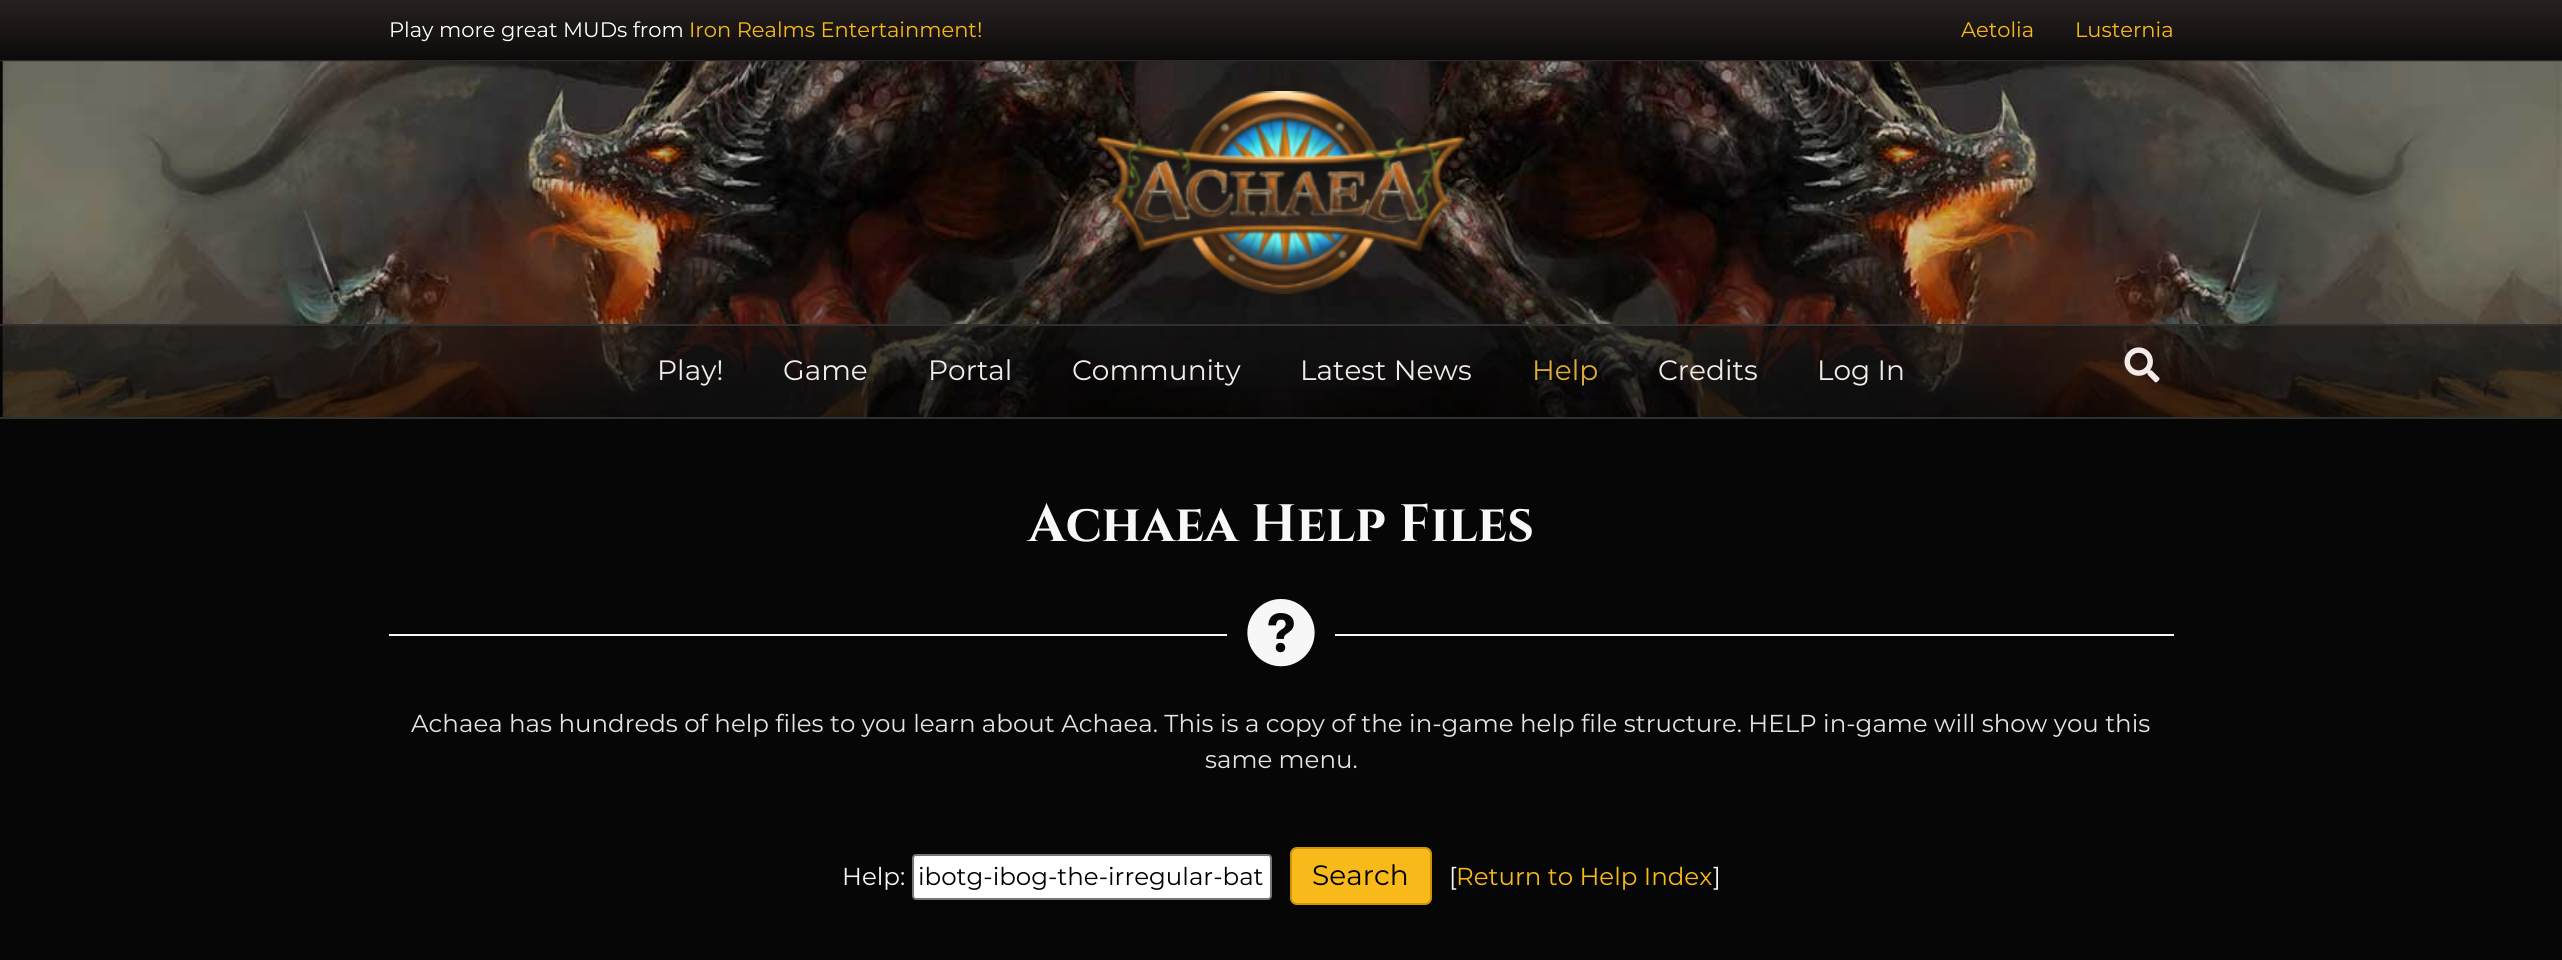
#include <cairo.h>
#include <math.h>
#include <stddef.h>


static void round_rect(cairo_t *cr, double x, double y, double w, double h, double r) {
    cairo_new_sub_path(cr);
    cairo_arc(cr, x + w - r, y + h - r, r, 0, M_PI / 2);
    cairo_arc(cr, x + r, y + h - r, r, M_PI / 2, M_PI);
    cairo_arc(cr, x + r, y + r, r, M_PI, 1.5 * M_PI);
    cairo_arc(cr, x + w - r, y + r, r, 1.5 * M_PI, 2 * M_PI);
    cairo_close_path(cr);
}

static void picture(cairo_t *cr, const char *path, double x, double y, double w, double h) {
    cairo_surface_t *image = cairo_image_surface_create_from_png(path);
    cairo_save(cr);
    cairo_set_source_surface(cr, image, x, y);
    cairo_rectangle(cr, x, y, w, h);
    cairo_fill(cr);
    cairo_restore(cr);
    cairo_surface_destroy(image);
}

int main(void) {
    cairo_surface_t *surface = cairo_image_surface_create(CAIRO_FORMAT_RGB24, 2562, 960);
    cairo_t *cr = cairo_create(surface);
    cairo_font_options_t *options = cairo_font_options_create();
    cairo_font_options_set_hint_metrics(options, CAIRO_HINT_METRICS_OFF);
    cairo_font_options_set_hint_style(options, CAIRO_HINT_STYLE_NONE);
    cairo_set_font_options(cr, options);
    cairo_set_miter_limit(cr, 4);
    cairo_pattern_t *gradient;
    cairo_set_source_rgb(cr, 0.027, 0.027, 0.027);
    cairo_paint(cr);
    gradient = cairo_pattern_create_linear(1281, 0, 1281, 60);
    cairo_pattern_add_color_stop_rgba(gradient, 0, 0.157, 0.129, 0.129, 1);
    cairo_pattern_add_color_stop_rgba(gradient, 1, 0.047, 0.039, 0.039, 1);
    cairo_set_source(cr, gradient);
    cairo_pattern_destroy(gradient);
    cairo_rectangle(cr, 0, 0, 2562, 60);
    cairo_fill(cr);
    cairo_set_source_rgb(cr, 0.188, 0.157, 0.157);
    cairo_rectangle(cr, 0, 60, 2562, 2);
    cairo_fill(cr);
    cairo_select_font_face(cr, "Montserrat", CAIRO_FONT_SLANT_NORMAL, CAIRO_FONT_WEIGHT_NORMAL);
    cairo_set_font_size(cr, 21);
    cairo_set_source_rgb(cr, 1, 1, 1);
    cairo_move_to(cr, 389, 37);
    cairo_show_text(cr, "Play more great MUDs from");
    cairo_set_source_rgb(cr, 0.969, 0.725, 0.102);
    cairo_move_to(cr, 689, 37);
    cairo_show_text(cr, "Iron Realms Entertainment!");
    cairo_move_to(cr, 1961, 37);
    cairo_show_text(cr, "Aetolia");
    cairo_move_to(cr, 2075, 37);
    cairo_show_text(cr, "Lusternia");
    picture(cr, "img1.png", 0, 61, 2562, 356);
    picture(cr, "img2.png", 1097, 91, 368, 203);
    cairo_set_source_rgb(cr, 0.188, 0.188, 0.188);
    cairo_rectangle(cr, 0, 324, 2562, 2);
    cairo_fill(cr);
    cairo_rectangle(cr, 0, 417, 2562, 2);
    cairo_fill(cr);
    cairo_set_font_size(cr, 28);
    cairo_set_source_rgb(cr, 0.957, 0.918, 0.91);
    cairo_move_to(cr, 657, 380);
    cairo_show_text(cr, "Play!");
    cairo_move_to(cr, 783, 380);
    cairo_show_text(cr, "Game");
    cairo_move_to(cr, 928, 380);
    cairo_show_text(cr, "Portal");
    cairo_move_to(cr, 1072, 380);
    cairo_show_text(cr, "Community");
    cairo_move_to(cr, 1300, 380);
    cairo_show_text(cr, "Latest News");
    cairo_set_source_rgb(cr, 0.859, 0.671, 0.231);
    cairo_move_to(cr, 1532, 380);
    cairo_show_text(cr, "Help");
    cairo_set_source_rgb(cr, 0.957, 0.918, 0.91);
    cairo_move_to(cr, 1658, 380);
    cairo_show_text(cr, "Credits");
    cairo_move_to(cr, 1817, 380);
    cairo_show_text(cr, "Log In");
    picture(cr, "img3.png", 2124, 347, 36, 36);
    cairo_select_font_face(cr, "Cinzel", CAIRO_FONT_SLANT_NORMAL, CAIRO_FONT_WEIGHT_BOLD);
    cairo_set_font_size(cr, 52.5);
    cairo_set_source_rgb(cr, 0.969, 0.969, 0.969);
    cairo_move_to(cr, 1028, 541);
    cairo_show_text(cr, "Achaea Help Files");
    cairo_rectangle(cr, 389, 634, 838, 2);
    cairo_fill(cr);
    picture(cr, "img4.png", 1247, 599, 68, 68);
    cairo_rectangle(cr, 1335, 634, 839, 2);
    cairo_fill(cr);
    cairo_select_font_face(cr, "Montserrat", CAIRO_FONT_SLANT_NORMAL, CAIRO_FONT_WEIGHT_NORMAL);
    cairo_set_font_size(cr, 24.5);
    cairo_set_source_rgb(cr, 0.894, 0.894, 0.894);
    cairo_move_to(cr, 411, 732);
    cairo_show_text(cr, "Achaea has hundreds of help files to you learn about Achaea. This is a copy of the in-game help file structure. HELP in-game will show you this");
    cairo_move_to(cr, 1205, 768);
    cairo_show_text(cr, "same menu.");
    cairo_set_source_rgb(cr, 0.969, 0.969, 0.969);
    cairo_move_to(cr, 842, 885);
    cairo_show_text(cr, "Help:");
    cairo_set_source_rgb(cr, 1, 1, 1);
    round_rect(cr, 913, 855, 358, 44, 3);
    cairo_fill_preserve(cr);
    cairo_set_source_rgb(cr, 0.463, 0.463, 0.463);
    cairo_stroke(cr);
    cairo_set_source_rgb(cr, 0, 0, 0);
    cairo_move_to(cr, 918, 885);
    cairo_show_text(cr, "ibotg-ibog-the-irregular-bat");
    cairo_set_source_rgb(cr, 0.969, 0.725, 0.102);
    round_rect(cr, 1291, 848, 140, 56, 6);
    cairo_fill_preserve(cr);
    cairo_set_source_rgb(cr, 0.804, 0.584, 0.027);
    cairo_stroke(cr);
    cairo_set_font_size(cr, 28);
    cairo_set_source_rgb(cr, 0, 0, 0);
    cairo_move_to(cr, 1312, 885);
    cairo_show_text(cr, "Search");
    cairo_set_font_size(cr, 24.5);
    cairo_set_source_rgb(cr, 0.969, 0.969, 0.969);
    cairo_move_to(cr, 1449, 885);
    cairo_show_text(cr, "[");
    cairo_set_source_rgb(cr, 0.969, 0.725, 0.102);
    cairo_move_to(cr, 1456, 885);
    cairo_show_text(cr, "Return to Help Index");
    cairo_set_source_rgb(cr, 0.969, 0.969, 0.969);
    cairo_move_to(cr, 1713, 885);
    cairo_show_text(cr, "]");
    cairo_surface_write_to_png(surface, "page.png");
    cairo_font_options_destroy(options);
    cairo_destroy(cr);
    cairo_surface_destroy(surface);
    return 0;
}
